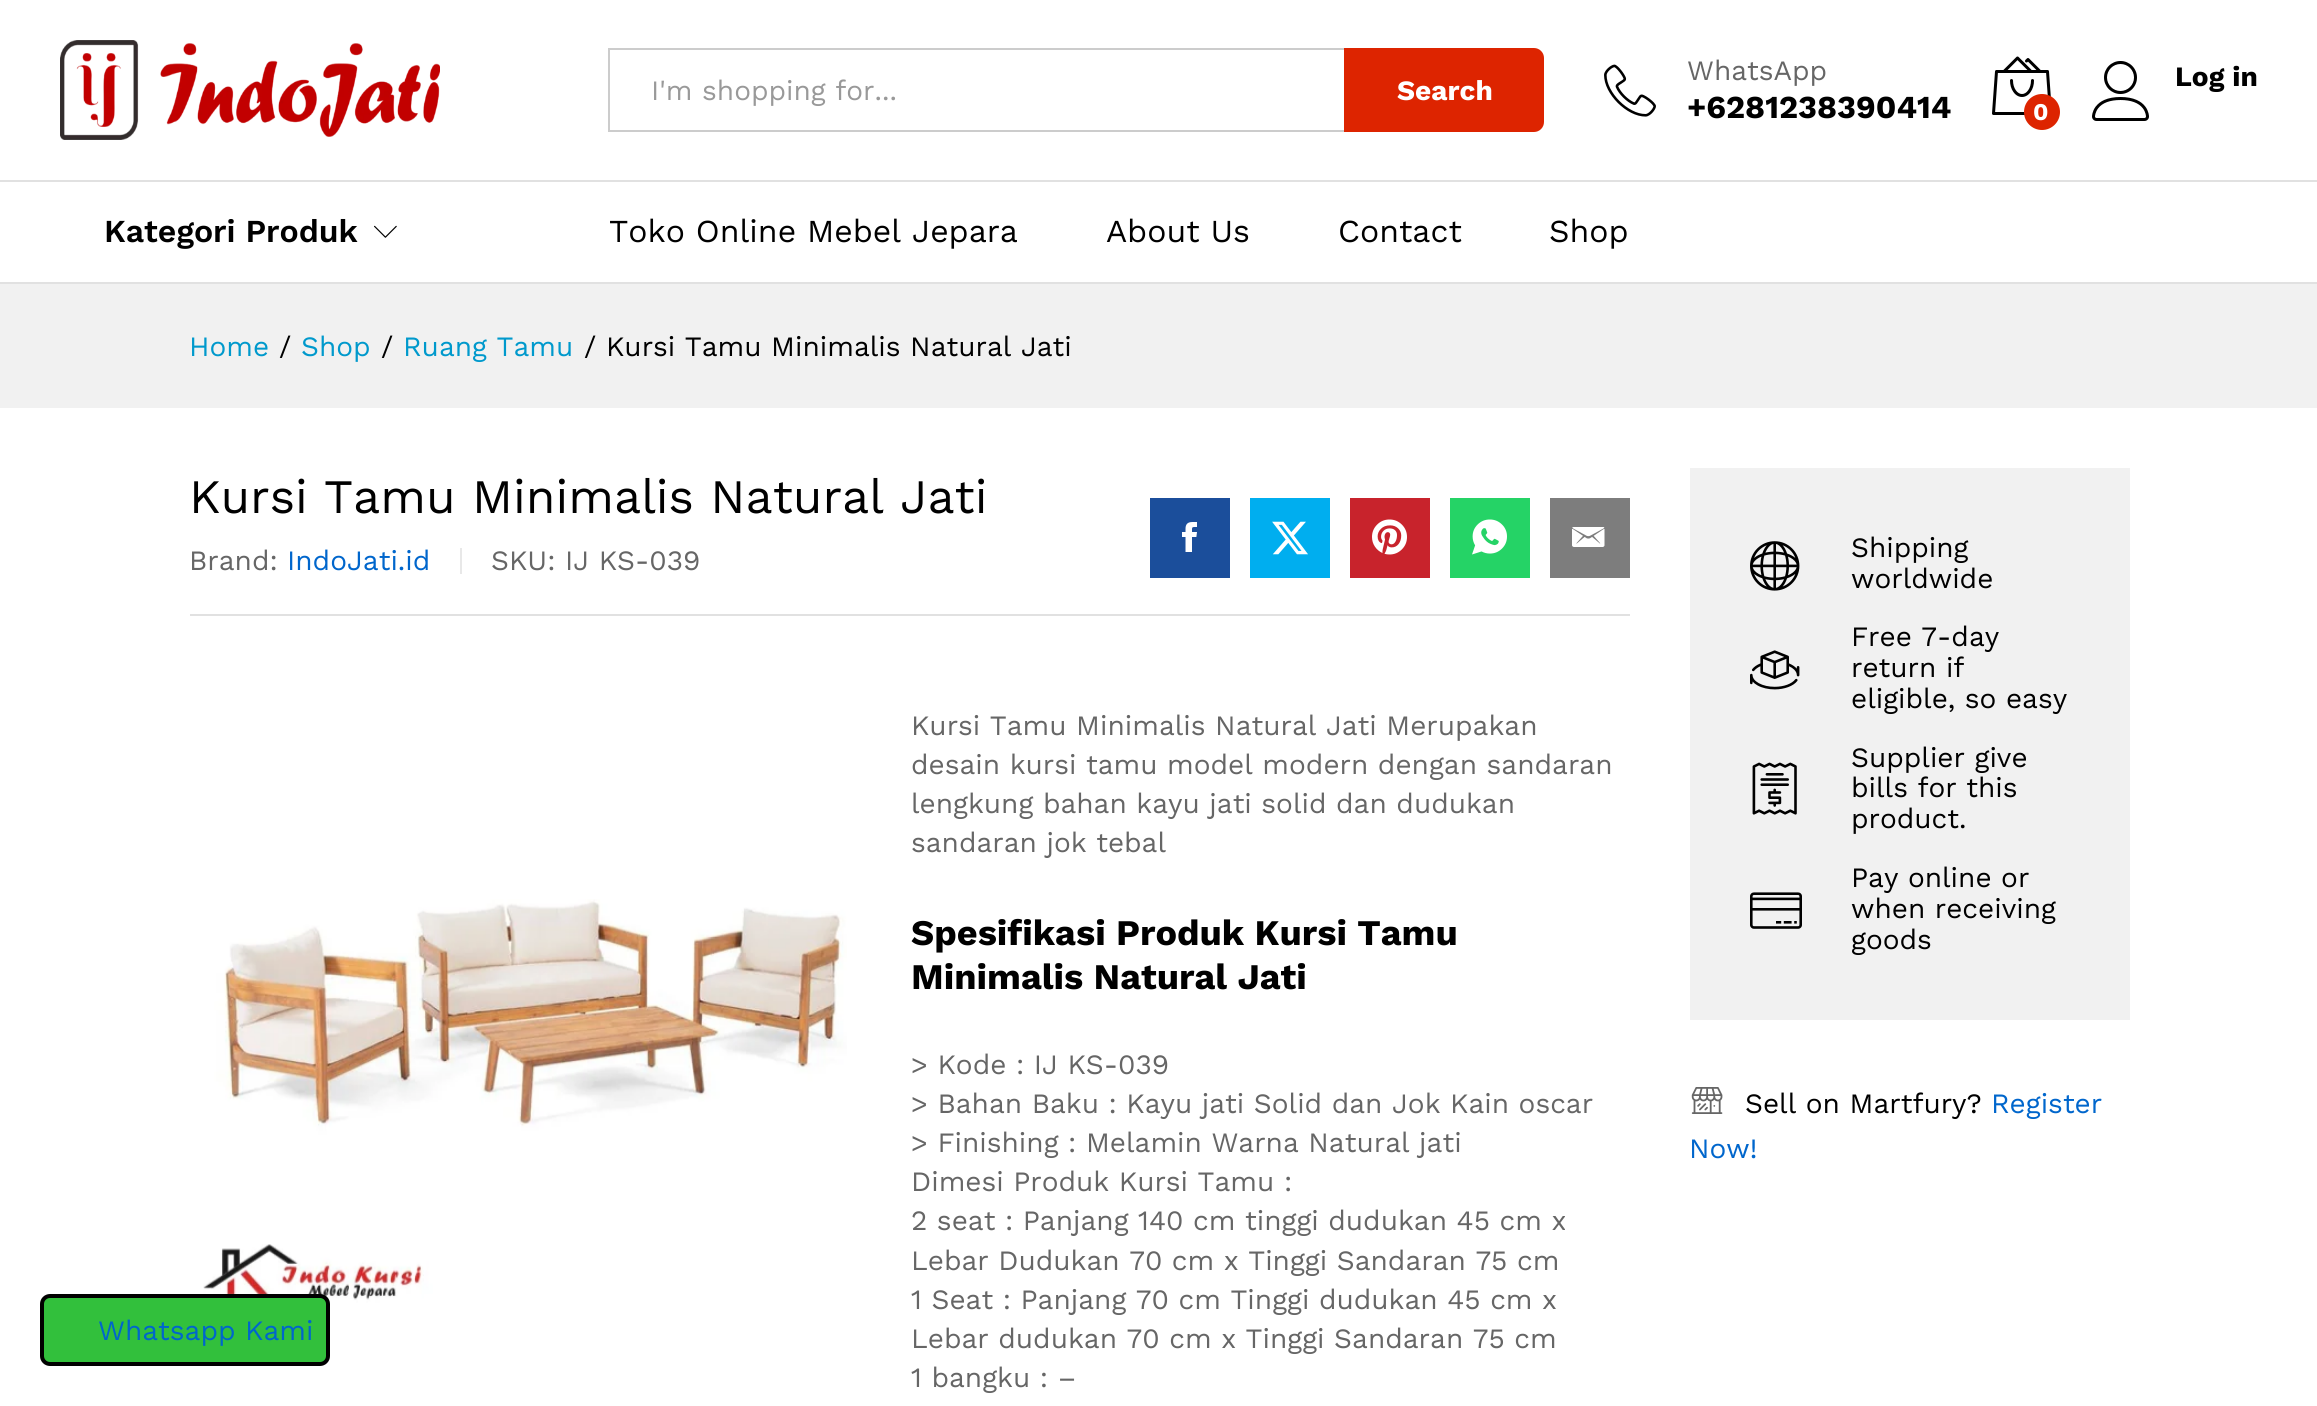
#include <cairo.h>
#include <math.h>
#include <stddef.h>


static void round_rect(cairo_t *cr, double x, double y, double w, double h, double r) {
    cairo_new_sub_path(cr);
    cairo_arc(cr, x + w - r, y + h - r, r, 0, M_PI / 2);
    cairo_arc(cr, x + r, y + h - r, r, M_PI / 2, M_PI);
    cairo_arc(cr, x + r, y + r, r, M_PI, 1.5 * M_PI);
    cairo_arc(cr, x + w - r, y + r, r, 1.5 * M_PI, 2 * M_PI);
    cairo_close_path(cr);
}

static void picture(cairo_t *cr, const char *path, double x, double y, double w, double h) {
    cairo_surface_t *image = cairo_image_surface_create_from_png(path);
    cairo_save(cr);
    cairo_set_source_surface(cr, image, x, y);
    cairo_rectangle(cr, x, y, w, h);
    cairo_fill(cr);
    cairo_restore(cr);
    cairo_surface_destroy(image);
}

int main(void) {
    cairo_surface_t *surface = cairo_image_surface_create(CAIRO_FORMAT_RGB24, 2317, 1406);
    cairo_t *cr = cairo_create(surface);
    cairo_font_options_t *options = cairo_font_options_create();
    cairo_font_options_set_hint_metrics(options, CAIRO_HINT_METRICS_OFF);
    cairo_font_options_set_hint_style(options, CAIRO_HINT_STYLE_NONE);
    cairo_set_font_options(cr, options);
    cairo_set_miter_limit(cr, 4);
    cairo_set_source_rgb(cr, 1, 1, 1);
    cairo_paint(cr);
    picture(cr, "img1.png", 60, 40, 380, 100);
    cairo_set_source_rgb(cr, 0.8, 0.8, 0.8);
    cairo_rectangle(cr, 608, 48, 2, 84);
    cairo_fill(cr);
    cairo_rectangle(cr, 610, 48, 734, 2);
    cairo_fill(cr);
    cairo_rectangle(cr, 610, 130, 734, 2);
    cairo_fill(cr);
    cairo_select_font_face(cr, "Work Sans", CAIRO_FONT_SLANT_NORMAL, CAIRO_FONT_WEIGHT_NORMAL);
    cairo_set_font_size(cr, 28);
    cairo_set_source_rgb(cr, 0.6, 0.6, 0.6);
    cairo_move_to(cr, 651, 100);
    cairo_show_text(cr, "I'm shopping for...");
    cairo_set_source_rgb(cr, 0.867, 0.141, 0);
    cairo_new_path(cr);
    cairo_move_to(cr, 1344, 48);
    cairo_line_to(cr, 1534, 48);
    cairo_curve_to(cr, 1539.5, 48, 1544, 52.5, 1544, 58);
    cairo_line_to(cr, 1544, 122);
    cairo_curve_to(cr, 1544, 127.5, 1539.5, 132, 1534, 132);
    cairo_line_to(cr, 1344, 132);
    cairo_close_path(cr);
    cairo_fill(cr);
    cairo_select_font_face(cr, "Work Sans", CAIRO_FONT_SLANT_NORMAL, CAIRO_FONT_WEIGHT_BOLD);
    cairo_set_source_rgb(cr, 1, 1, 1);
    cairo_move_to(cr, 1397, 100);
    cairo_show_text(cr, "Search");
    picture(cr, "img2.png", 1604, 64, 52, 53);
    cairo_select_font_face(cr, "Work Sans", CAIRO_FONT_SLANT_NORMAL, CAIRO_FONT_WEIGHT_NORMAL);
    cairo_set_source_rgb(cr, 0.4, 0.4, 0.4);
    cairo_move_to(cr, 1687, 80);
    cairo_show_text(cr, "WhatsApp");
    cairo_select_font_face(cr, "Work Sans", CAIRO_FONT_SLANT_NORMAL, CAIRO_FONT_WEIGHT_BOLD);
    cairo_set_font_size(cr, 32);
    cairo_set_source_rgb(cr, 0, 0, 0);
    cairo_move_to(cr, 1687, 118);
    cairo_show_text(cr, "+6281238390414");
    picture(cr, "img3.png", 2092, 61, 57, 60);
    cairo_set_font_size(cr, 28);
    cairo_move_to(cr, 2175, 86);
    cairo_show_text(cr, "Log in");
    picture(cr, "img4.png", 1992, 56, 59, 59);
    cairo_set_source_rgb(cr, 0.867, 0.141, 0);
    cairo_arc(cr, 2042, 112, 18, 0, 2 * M_PI);
    cairo_fill(cr);
    cairo_set_font_size(cr, 24);
    cairo_set_source_rgb(cr, 1, 1, 1);
    cairo_move_to(cr, 2033, 120);
    cairo_show_text(cr, "0");
    cairo_set_source_rgb(cr, 0.882, 0.882, 0.882);
    cairo_rectangle(cr, 0, 180, 2317, 2);
    cairo_fill(cr);
    cairo_rectangle(cr, 0, 282, 2317, 2);
    cairo_fill(cr);
    cairo_select_font_face(cr, "Work Sans SemiBold", CAIRO_FONT_SLANT_NORMAL, CAIRO_FONT_WEIGHT_NORMAL);
    cairo_set_font_size(cr, 32);
    cairo_set_source_rgb(cr, 0, 0, 0);
    cairo_move_to(cr, 104, 242);
    cairo_show_text(cr, "Kategori Produk");
    picture(cr, "img5.png", 374, 225, 23, 13);
    cairo_select_font_face(cr, "Work Sans", CAIRO_FONT_SLANT_NORMAL, CAIRO_FONT_WEIGHT_NORMAL);
    cairo_move_to(cr, 609, 242);
    cairo_show_text(cr, "Toko Online Mebel Jepara");
    cairo_move_to(cr, 1106, 242);
    cairo_show_text(cr, "About Us");
    cairo_move_to(cr, 1338, 242);
    cairo_show_text(cr, "Contact");
    cairo_move_to(cr, 1549, 242);
    cairo_show_text(cr, "Shop");
    cairo_set_source_rgb(cr, 0.945, 0.945, 0.945);
    cairo_rectangle(cr, 0, 284, 2317, 124);
    cairo_fill(cr);
    cairo_set_font_size(cr, 28);
    cairo_set_source_rgb(cr, 0, 0.6, 0.8);
    cairo_move_to(cr, 189, 356);
    cairo_show_text(cr, "Home");
    cairo_set_source_rgb(cr, 0, 0, 0);
    cairo_move_to(cr, 279, 356);
    cairo_show_text(cr, "/");
    cairo_set_source_rgb(cr, 0, 0.6, 0.8);
    cairo_move_to(cr, 301, 356);
    cairo_show_text(cr, "Shop");
    cairo_set_source_rgb(cr, 0, 0, 0);
    cairo_move_to(cr, 381, 356);
    cairo_show_text(cr, "/");
    cairo_set_source_rgb(cr, 0, 0.6, 0.8);
    cairo_move_to(cr, 403, 356);
    cairo_show_text(cr, "Ruang Tamu");
    cairo_set_source_rgb(cr, 0, 0, 0);
    cairo_move_to(cr, 584, 356);
    cairo_show_text(cr, "/");
    cairo_move_to(cr, 606, 356);
    cairo_show_text(cr, "Kursi Tamu Minimalis Natural Jati");
    cairo_set_source_rgb(cr, 0.882, 0.882, 0.882);
    cairo_rectangle(cr, 190, 614, 1440, 2);
    cairo_fill(cr);
    cairo_set_font_size(cr, 48);
    cairo_set_source_rgb(cr, 0, 0, 0);
    cairo_move_to(cr, 189, 513);
    cairo_show_text(cr, "Kursi Tamu Minimalis Natural Jati");
    cairo_set_font_size(cr, 28);
    cairo_set_source_rgb(cr, 0.4, 0.4, 0.4);
    cairo_move_to(cr, 189, 570);
    cairo_show_text(cr, "Brand:");
    cairo_set_source_rgb(cr, 0, 0.4, 0.8);
    cairo_move_to(cr, 287, 570);
    cairo_show_text(cr, "IndoJati.id");
    cairo_set_source_rgb(cr, 0.91, 0.91, 0.91);
    cairo_rectangle(cr, 460, 548, 2, 26);
    cairo_fill(cr);
    cairo_set_source_rgb(cr, 0.4, 0.4, 0.4);
    cairo_move_to(cr, 491, 570);
    cairo_show_text(cr, "SKU: IJ KS-039");
    cairo_set_source_rgb(cr, 0.106, 0.306, 0.608);
    cairo_rectangle(cr, 1150, 498, 80, 80);
    cairo_fill(cr);
    picture(cr, "img6.png", 1182, 522, 15, 30);
    cairo_set_source_rgb(cr, 0, 0.682, 0.937);
    cairo_rectangle(cr, 1250, 498, 80, 80);
    cairo_fill(cr);
    picture(cr, "img7.png", 1272, 521, 36, 34);
    cairo_set_source_rgb(cr, 0.784, 0.137, 0.173);
    cairo_rectangle(cr, 1350, 498, 80, 80);
    cairo_fill(cr);
    picture(cr, "img8.png", 1372, 519, 35, 36);
    cairo_set_source_rgb(cr, 0.145, 0.827, 0.4);
    cairo_rectangle(cr, 1450, 498, 80, 80);
    cairo_fill(cr);
    picture(cr, "img9.png", 1472, 519, 35, 36);
    cairo_set_source_rgb(cr, 0.49, 0.49, 0.49);
    cairo_rectangle(cr, 1550, 498, 80, 80);
    cairo_fill(cr);
    picture(cr, "img10.png", 1572, 527, 33, 20);
    picture(cr, "img11.png", 203, 899, 644, 404);
    cairo_set_source_rgb(cr, 0.4, 0.4, 0.4);
    cairo_move_to(cr, 911, 735);
    cairo_show_text(cr, "Kursi Tamu Minimalis Natural Jati Merupakan");
    cairo_move_to(cr, 911, 774);
    cairo_show_text(cr, "desain kursi tamu model modern dengan sandaran");
    cairo_move_to(cr, 911, 813);
    cairo_show_text(cr, "lengkung bahan kayu jati solid dan dudukan");
    cairo_move_to(cr, 911, 852);
    cairo_show_text(cr, "sandaran jok tebal");
    cairo_select_font_face(cr, "Work Sans", CAIRO_FONT_SLANT_NORMAL, CAIRO_FONT_WEIGHT_BOLD);
    cairo_set_font_size(cr, 36);
    cairo_set_source_rgb(cr, 0, 0, 0);
    cairo_move_to(cr, 911, 945);
    cairo_show_text(cr, "Spesifikasi Produk Kursi Tamu");
    cairo_move_to(cr, 911, 989);
    cairo_show_text(cr, "Minimalis Natural Jati");
    cairo_select_font_face(cr, "Work Sans", CAIRO_FONT_SLANT_NORMAL, CAIRO_FONT_WEIGHT_NORMAL);
    cairo_set_font_size(cr, 28);
    cairo_set_source_rgb(cr, 0.4, 0.4, 0.4);
    cairo_move_to(cr, 911, 1074);
    cairo_show_text(cr, "> Kode : IJ KS-039");
    cairo_move_to(cr, 911, 1113);
    cairo_show_text(cr, "> Bahan Baku : Kayu jati Solid dan Jok Kain oscar");
    cairo_move_to(cr, 911, 1152);
    cairo_show_text(cr, "> Finishing : Melamin Warna Natural jati");
    cairo_move_to(cr, 911, 1191);
    cairo_show_text(cr, "Dimesi Produk Kursi Tamu :");
    cairo_move_to(cr, 911, 1230);
    cairo_show_text(cr, "2 seat : Panjang 140 cm tinggi dudukan 45 cm x");
    cairo_move_to(cr, 911, 1270);
    cairo_show_text(cr, "Lebar Dudukan 70 cm x Tinggi Sandaran 75 cm");
    cairo_move_to(cr, 911, 1309);
    cairo_show_text(cr, "1 Seat : Panjang 70 cm Tinggi dudukan 45 cm x");
    cairo_move_to(cr, 911, 1348);
    cairo_show_text(cr, "Lebar dudukan 70 cm x Tinggi Sandaran 75 cm");
    cairo_move_to(cr, 911, 1387);
    cairo_show_text(cr, "1 bangku : –");
    cairo_set_source_rgb(cr, 0.945, 0.945, 0.945);
    cairo_rectangle(cr, 1690, 468, 440, 552);
    cairo_fill(cr);
    picture(cr, "img12.png", 1750, 541, 50, 50);
    cairo_set_source_rgb(cr, 0, 0, 0);
    cairo_move_to(cr, 1851, 557);
    cairo_show_text(cr, "Shipping");
    cairo_move_to(cr, 1851, 588);
    cairo_show_text(cr, "worldwide");
    cairo_move_to(cr, 1851, 646);
    cairo_show_text(cr, "Free 7-day");
    picture(cr, "img13.png", 1750, 650, 50, 40);
    cairo_move_to(cr, 1851, 677);
    cairo_show_text(cr, "return if");
    cairo_move_to(cr, 1851, 708);
    cairo_show_text(cr, "eligible, so easy");
    picture(cr, "img14.png", 1752, 762, 45, 53);
    cairo_move_to(cr, 1851, 767);
    cairo_show_text(cr, "Supplier give");
    cairo_move_to(cr, 1851, 797);
    cairo_show_text(cr, "bills for this");
    cairo_move_to(cr, 1851, 828);
    cairo_show_text(cr, "product.");
    cairo_move_to(cr, 1851, 887);
    cairo_show_text(cr, "Pay online or");
    picture(cr, "img15.png", 1750, 892, 52, 37);
    cairo_move_to(cr, 1851, 918);
    cairo_show_text(cr, "when receiving");
    cairo_move_to(cr, 1851, 949);
    cairo_show_text(cr, "goods");
    picture(cr, "img16.png", 1691, 1087, 32, 27);
    cairo_move_to(cr, 1745, 1113);
    cairo_show_text(cr, "Sell on Martfury?");
    cairo_set_source_rgb(cr, 0, 0.4, 0.8);
    cairo_move_to(cr, 1991, 1113);
    cairo_show_text(cr, "Register");
    cairo_move_to(cr, 1689, 1158);
    cairo_show_text(cr, "Now!");
    cairo_set_source_rgb(cr, 0.196, 0.753, 0.235);
    round_rect(cr, 42, 1296, 286, 68, 8);
    cairo_fill_preserve(cr);
    cairo_set_source_rgb(cr, 0, 0, 0);
    cairo_set_line_width(cr, 4);
    cairo_stroke(cr);
    cairo_set_source_rgb(cr, 0, 0.4, 0.8);
    cairo_move_to(cr, 98, 1340);
    cairo_show_text(cr, "Whatsapp Kami");
    cairo_surface_write_to_png(surface, "page.png");
    cairo_font_options_destroy(options);
    cairo_destroy(cr);
    cairo_surface_destroy(surface);
    return 0;
}
